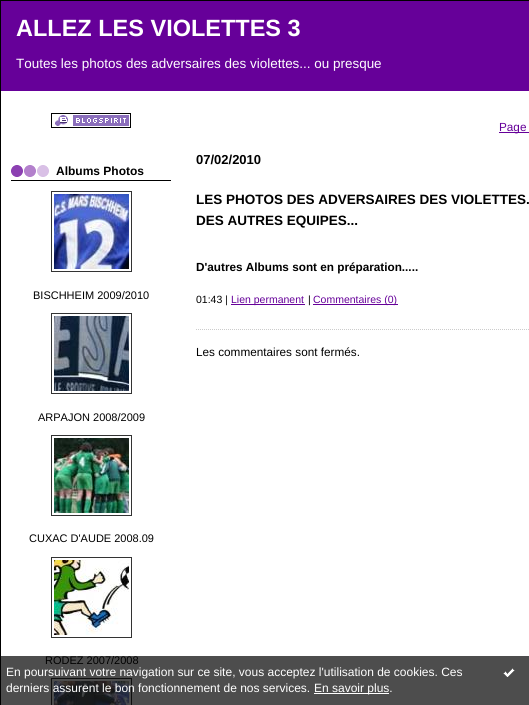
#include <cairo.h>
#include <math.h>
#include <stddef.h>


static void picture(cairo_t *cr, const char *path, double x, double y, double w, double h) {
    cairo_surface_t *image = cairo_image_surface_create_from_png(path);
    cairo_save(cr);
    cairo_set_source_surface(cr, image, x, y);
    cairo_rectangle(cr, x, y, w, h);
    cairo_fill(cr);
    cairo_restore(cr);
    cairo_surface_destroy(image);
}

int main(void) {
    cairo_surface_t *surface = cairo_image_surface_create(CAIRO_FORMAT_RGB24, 529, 705);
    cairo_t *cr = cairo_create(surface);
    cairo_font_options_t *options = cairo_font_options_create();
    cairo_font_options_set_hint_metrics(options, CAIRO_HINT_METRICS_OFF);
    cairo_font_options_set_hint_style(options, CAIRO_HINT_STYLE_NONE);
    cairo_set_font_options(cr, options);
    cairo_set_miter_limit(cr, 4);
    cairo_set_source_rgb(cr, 1, 1, 1);
    cairo_paint(cr);
    cairo_set_source_rgb(cr, 0.302, 0.302, 0.302);
    cairo_rectangle(cr, 1, 656, 528, 49);
    cairo_fill(cr);
    cairo_rectangle(cr, 0.5, 0.5, 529, 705);
    cairo_set_source_rgb(cr, 0, 0, 0);
    cairo_set_line_width(cr, 1);
    cairo_stroke(cr);
    cairo_set_source_rgb(cr, 0.4, 0, 0.6);
    cairo_rectangle(cr, 1, 1, 528, 90);
    cairo_fill(cr);
    cairo_select_font_face(cr, "Liberation Sans", CAIRO_FONT_SLANT_NORMAL, CAIRO_FONT_WEIGHT_BOLD);
    cairo_set_font_size(cr, 23.5);
    cairo_set_source_rgb(cr, 1, 1, 1);
    cairo_move_to(cr, 16, 36);
    cairo_show_text(cr, "ALLEZ LES VIOLETTES 3");
    cairo_select_font_face(cr, "Liberation Sans", CAIRO_FONT_SLANT_NORMAL, CAIRO_FONT_WEIGHT_NORMAL);
    cairo_set_font_size(cr, 13.45);
    cairo_move_to(cr, 16, 68);
    cairo_show_text(cr, "Toutes les photos des adversaires des violettes... ou presque");
    picture(cr, "img1.png", 51, 113, 80, 15);
    picture(cr, "img2.png", 11, 165, 38, 12);
    cairo_set_source_rgb(cr, 0, 0, 0);
    cairo_rectangle(cr, 11, 180, 160, 1);
    cairo_fill(cr);
    cairo_select_font_face(cr, "Liberation Sans", CAIRO_FONT_SLANT_NORMAL, CAIRO_FONT_WEIGHT_BOLD);
    cairo_set_font_size(cr, 12);
    cairo_move_to(cr, 56, 175);
    cairo_show_text(cr, "Albums Photos");
    cairo_rectangle(cr, 51.5, 191.5, 80, 80);
    cairo_set_source_rgb(cr, 0.2, 0.2, 0.2);
    cairo_stroke(cr);
    picture(cr, "img3.png", 54, 194, 75, 75);
    cairo_select_font_face(cr, "Liberation Sans", CAIRO_FONT_SLANT_NORMAL, CAIRO_FONT_WEIGHT_NORMAL);
    cairo_set_font_size(cr, 11);
    cairo_set_source_rgb(cr, 0, 0, 0);
    cairo_move_to(cr, 33, 299);
    cairo_show_text(cr, "BISCHHEIM 2009/2010");
    cairo_rectangle(cr, 51.5, 313.5, 80, 80);
    cairo_set_source_rgb(cr, 0.2, 0.2, 0.2);
    cairo_stroke(cr);
    picture(cr, "img4.png", 54, 316, 75, 75);
    cairo_set_source_rgb(cr, 0, 0, 0);
    cairo_move_to(cr, 38, 421);
    cairo_show_text(cr, "ARPAJON 2008/2009");
    cairo_rectangle(cr, 51.5, 435.5, 80, 80);
    cairo_set_source_rgb(cr, 0.2, 0.2, 0.2);
    cairo_stroke(cr);
    picture(cr, "img5.png", 54, 438, 75, 75);
    cairo_set_source_rgb(cr, 0, 0, 0);
    cairo_move_to(cr, 29, 542);
    cairo_show_text(cr, "CUXAC D'AUDE 2008.09");
    cairo_rectangle(cr, 51.5, 557.5, 80, 80);
    cairo_set_source_rgb(cr, 0.2, 0.2, 0.2);
    cairo_stroke(cr);
    picture(cr, "img6.png", 54, 560, 75, 75);
    cairo_set_source_rgb(cr, 0, 0, 0);
    cairo_move_to(cr, 45, 664);
    cairo_show_text(cr, "RODEZ 2007/2008");
    cairo_rectangle(cr, 51.5, 678.5, 80, 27);
    cairo_set_source_rgb(cr, 0.059, 0.059, 0.059);
    cairo_stroke(cr);
    picture(cr, "img7.png", 54, 681, 75, 24);
    cairo_set_source_rgb(cr, 0.4, 0, 0.6);
    cairo_rectangle(cr, 499, 132, 30, 1);
    cairo_fill(cr);
    cairo_set_font_size(cr, 11.75);
    cairo_move_to(cr, 499, 131);
    cairo_show_text(cr, "Page");
    cairo_select_font_face(cr, "Liberation Sans", CAIRO_FONT_SLANT_NORMAL, CAIRO_FONT_WEIGHT_BOLD);
    cairo_set_font_size(cr, 13);
    cairo_set_source_rgb(cr, 0, 0, 0);
    cairo_move_to(cr, 196, 164);
    cairo_show_text(cr, "07/02/2010");
    cairo_set_font_size(cr, 13.5);
    cairo_move_to(cr, 196, 204);
    cairo_show_text(cr, "LES PHOTOS DES ADVERSAIRES DES VIOLETTES.");
    cairo_move_to(cr, 196, 225);
    cairo_show_text(cr, "DES AUTRES EQUIPES...");
    cairo_set_font_size(cr, 11.75);
    cairo_move_to(cr, 196, 271);
    cairo_show_text(cr, "D'autres Albums sont en préparation.....");
    cairo_new_path(cr);
    cairo_move_to(cr, 196, 329.5);
    cairo_line_to(cr, 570, 329.5);
    cairo_set_source_rgb(cr, 0.8, 0.8, 0.8);
    cairo_set_dash(cr, (double[]){1, 1}, 2, 0);
    cairo_stroke(cr);
    cairo_select_font_face(cr, "Liberation Sans", CAIRO_FONT_SLANT_NORMAL, CAIRO_FONT_WEIGHT_NORMAL);
    cairo_set_font_size(cr, 10.5);
    cairo_set_source_rgb(cr, 0, 0, 0);
    cairo_move_to(cr, 196, 303);
    cairo_show_text(cr, "01:43 |");
    cairo_set_source_rgb(cr, 0.4, 0, 0.6);
    cairo_rectangle(cr, 231, 304, 74, 1);
    cairo_fill(cr);
    cairo_move_to(cr, 231, 303);
    cairo_show_text(cr, "Lien permanent");
    cairo_set_source_rgb(cr, 0, 0, 0);
    cairo_move_to(cr, 308, 303);
    cairo_show_text(cr, "|");
    cairo_set_source_rgb(cr, 0.4, 0, 0.6);
    cairo_rectangle(cr, 313, 304, 85, 1);
    cairo_fill(cr);
    cairo_move_to(cr, 313, 303);
    cairo_show_text(cr, "Commentaires (0)");
    cairo_set_font_size(cr, 11.75);
    cairo_set_source_rgb(cr, 0, 0, 0);
    cairo_move_to(cr, 196, 356);
    cairo_show_text(cr, "Les commentaires sont fermés.");
    cairo_set_font_size(cr, 12);
    cairo_set_source_rgb(cr, 1, 1, 1);
    cairo_move_to(cr, 6, 676);
    cairo_show_text(cr, "En poursuivant votre navigation sur ce site, vous acceptez l'utilisation de cookies. Ces");
    cairo_move_to(cr, 6, 692);
    cairo_show_text(cr, "derniers assurent le bon fonctionnement de nos services.");
    cairo_rectangle(cr, 314, 693, 75, 1);
    cairo_fill(cr);
    cairo_move_to(cr, 314, 692);
    cairo_show_text(cr, "En savoir plus.");
    picture(cr, "img8.png", 503, 668, 12, 9);
    cairo_surface_write_to_png(surface, "page.png");
    cairo_font_options_destroy(options);
    cairo_destroy(cr);
    cairo_surface_destroy(surface);
    return 0;
}
